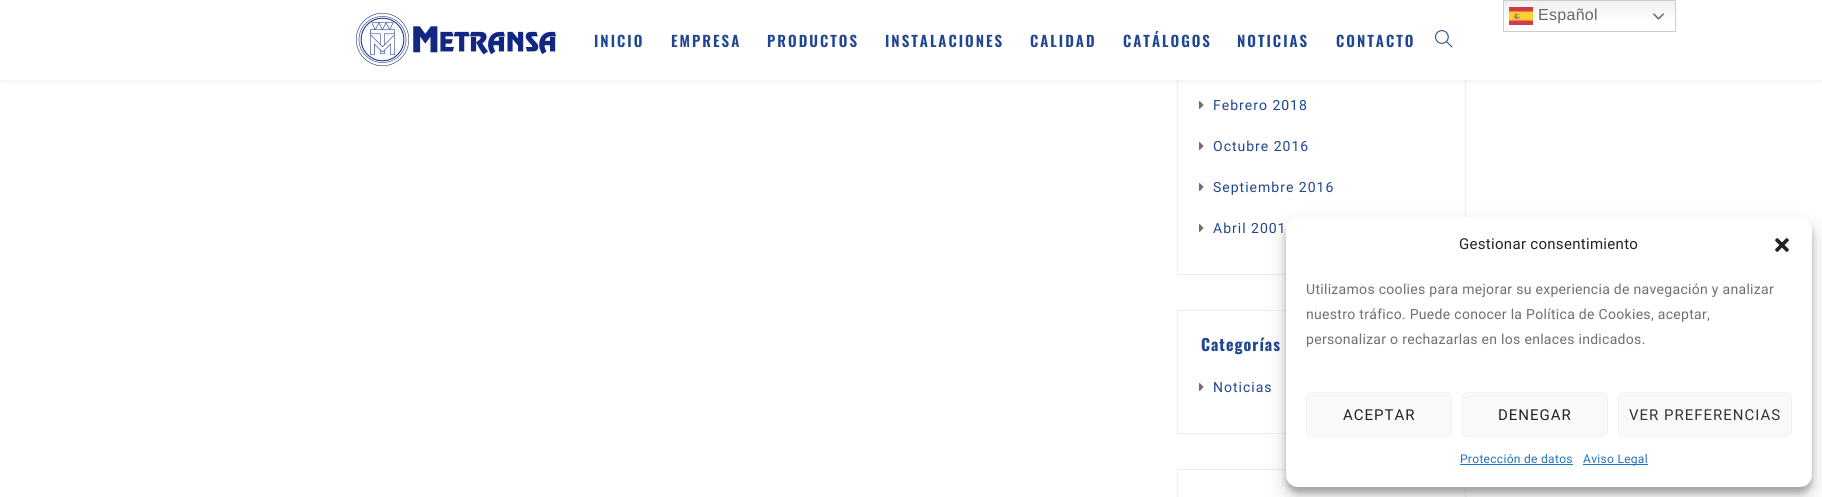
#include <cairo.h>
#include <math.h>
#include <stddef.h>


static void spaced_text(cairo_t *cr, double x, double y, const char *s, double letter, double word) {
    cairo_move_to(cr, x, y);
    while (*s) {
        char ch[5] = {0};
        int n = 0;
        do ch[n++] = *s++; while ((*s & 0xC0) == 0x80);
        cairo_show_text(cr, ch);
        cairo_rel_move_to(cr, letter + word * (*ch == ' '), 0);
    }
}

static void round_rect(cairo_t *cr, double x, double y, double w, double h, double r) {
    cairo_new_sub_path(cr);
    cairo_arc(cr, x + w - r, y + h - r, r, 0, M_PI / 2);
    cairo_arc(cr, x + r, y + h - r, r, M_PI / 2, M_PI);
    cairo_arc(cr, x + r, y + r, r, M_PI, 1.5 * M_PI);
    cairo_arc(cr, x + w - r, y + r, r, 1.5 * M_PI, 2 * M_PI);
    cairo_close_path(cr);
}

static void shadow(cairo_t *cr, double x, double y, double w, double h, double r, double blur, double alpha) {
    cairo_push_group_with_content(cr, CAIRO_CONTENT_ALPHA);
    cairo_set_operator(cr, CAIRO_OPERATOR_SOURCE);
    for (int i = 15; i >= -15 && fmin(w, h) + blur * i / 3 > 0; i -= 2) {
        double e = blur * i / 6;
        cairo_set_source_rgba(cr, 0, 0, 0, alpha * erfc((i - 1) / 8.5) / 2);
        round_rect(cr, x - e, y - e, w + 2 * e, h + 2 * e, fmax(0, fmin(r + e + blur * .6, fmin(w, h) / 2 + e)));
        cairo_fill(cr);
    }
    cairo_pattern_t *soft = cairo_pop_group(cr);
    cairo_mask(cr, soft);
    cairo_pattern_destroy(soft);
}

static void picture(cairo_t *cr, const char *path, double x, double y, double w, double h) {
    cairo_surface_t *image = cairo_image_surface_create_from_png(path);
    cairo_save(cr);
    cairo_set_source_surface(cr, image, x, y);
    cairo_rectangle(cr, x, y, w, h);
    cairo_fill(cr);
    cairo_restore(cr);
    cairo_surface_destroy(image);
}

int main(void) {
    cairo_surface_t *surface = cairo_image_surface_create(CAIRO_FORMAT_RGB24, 1822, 497);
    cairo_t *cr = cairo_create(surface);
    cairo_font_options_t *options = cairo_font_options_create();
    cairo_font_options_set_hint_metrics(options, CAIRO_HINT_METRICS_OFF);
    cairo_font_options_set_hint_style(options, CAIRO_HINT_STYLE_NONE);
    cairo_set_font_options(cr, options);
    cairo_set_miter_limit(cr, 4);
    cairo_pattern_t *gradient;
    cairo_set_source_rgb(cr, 1, 1, 1);
    cairo_paint(cr);
    cairo_rectangle(cr, 1177.5, -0.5, 288, 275);
    cairo_set_source_rgb(cr, 0.929, 0.929, 0.929);
    cairo_set_line_width(cr, 1);
    cairo_stroke(cr);
    cairo_set_source_rgb(cr, 0, 0, 0);
    shadow(cr, 0, 0, 1822, 80, 0, 3.5, 0.09);
    cairo_set_source_rgb(cr, 1, 1, 1);
    cairo_rectangle(cr, 0, 0, 1822, 80);
    cairo_fill(cr);
    gradient = cairo_pattern_create_linear(1590, 0, 1590, 32);
    cairo_pattern_add_color_stop_rgba(gradient, 0, 0.937, 0.937, 0.937, 1);
    cairo_pattern_add_color_stop_rgba(gradient, 0.7, 1, 1, 1, 1);
    cairo_set_source(cr, gradient);
    cairo_pattern_destroy(gradient);
    cairo_rectangle(cr, 1504, 1, 171, 18);
    cairo_fill(cr);
    cairo_rectangle(cr, 1503.5, 0.5, 172, 31);
    cairo_set_source_rgb(cr, 0.8, 0.8, 0.8);
    cairo_stroke(cr);
    picture(cr, "img1.png", 1509, 7, 24, 18);
    cairo_select_font_face(cr, "Liberation Sans", CAIRO_FONT_SLANT_NORMAL, CAIRO_FONT_WEIGHT_NORMAL);
    cairo_set_font_size(cr, 16);
    cairo_set_source_rgb(cr, 0.4, 0.4, 0.4);
    spaced_text(cr, 1538, 20, "Español", 0.3, 0);
    picture(cr, "img2.png", 1653, 13, 11, 7);
    picture(cr, "img3.png", 356, 13, 200, 53);
    cairo_select_font_face(cr, "Oswald SemiBold", CAIRO_FONT_SLANT_NORMAL, CAIRO_FONT_WEIGHT_NORMAL);
    cairo_set_font_size(cr, 15);
    cairo_set_source_rgb(cr, 0.122, 0.275, 0.569);
    spaced_text(cr, 594, 47, "INICIO", 2, 0);
    spaced_text(cr, 671, 47, "EMPRESA", 2, 0);
    spaced_text(cr, 767, 47, "PRODUCTOS", 2, 0);
    spaced_text(cr, 885, 47, "INSTALACIONES", 2, 0);
    spaced_text(cr, 1030, 47, "CALIDAD", 2, 0);
    spaced_text(cr, 1123, 47, "CATÁLOGOS", 2, 0);
    spaced_text(cr, 1237, 47, "NOTICIAS", 2, 0);
    spaced_text(cr, 1336, 47, "CONTACTO", 2, 0);
    picture(cr, "img4.png", 1435, 30, 18, 18);
    picture(cr, "img5.png", 1199, 101, 5, 8);
    cairo_select_font_face(cr, "Roboto", CAIRO_FONT_SLANT_NORMAL, CAIRO_FONT_WEIGHT_NORMAL);
    cairo_set_font_size(cr, 14);
    spaced_text(cr, 1213, 110, "Febrero 2018", 1, 0);
    picture(cr, "img5.png", 1199, 142, 5, 8);
    spaced_text(cr, 1213, 151, "Octubre 2016", 1, 0);
    picture(cr, "img5.png", 1199, 183, 5, 8);
    spaced_text(cr, 1213, 192, "Septiembre 2016", 1, 0);
    picture(cr, "img5.png", 1199, 224, 5, 8);
    spaced_text(cr, 1213, 233, "Abril 2001", 1, 0);
    cairo_rectangle(cr, 1177.5, 310.5, 288, 123);
    cairo_set_source_rgb(cr, 0.929, 0.929, 0.929);
    cairo_stroke(cr);
    cairo_select_font_face(cr, "Oswald", CAIRO_FONT_SLANT_NORMAL, CAIRO_FONT_WEIGHT_BOLD);
    cairo_set_font_size(cr, 16);
    cairo_set_source_rgb(cr, 0.122, 0.275, 0.569);
    spaced_text(cr, 1201, 351, "Categorías", 1, 0);
    picture(cr, "img5.png", 1199, 383, 5, 8);
    cairo_select_font_face(cr, "Roboto", CAIRO_FONT_SLANT_NORMAL, CAIRO_FONT_WEIGHT_NORMAL);
    cairo_set_font_size(cr, 14);
    spaced_text(cr, 1213, 392, "Noticias", 1, 0);
    cairo_rectangle(cr, 1177.5, 469.5, 288, 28);
    cairo_set_source_rgb(cr, 0.929, 0.929, 0.929);
    cairo_stroke(cr);
    cairo_set_source_rgb(cr, 0, 0, 0);
    shadow(cr, 1286, 223, 526, 270, 12, 3, 0.23);
    shadow(cr, 1286, 227, 526, 270, 12, 10, 0.19);
    cairo_set_source_rgb(cr, 1, 1, 1);
    round_rect(cr, 1286, 217, 526, 270, 12);
    cairo_fill(cr);
    cairo_set_font_size(cr, 15);
    cairo_set_source_rgb(cr, 0.133, 0.133, 0.133);
    spaced_text(cr, 1459, 249, "Gestionar consentimiento", 0.3, 0);
    picture(cr, "img6.png", 1775, 238, 14, 14);
    cairo_set_font_size(cr, 14);
    cairo_set_source_rgb(cr, 0.435, 0.435, 0.435);
    spaced_text(cr, 1306, 294, "Utilizamos coolies para mejorar su experiencia de navegación y analizar", 0.3, 0);
    spaced_text(cr, 1306, 319, "nuestro tráfico. Puede conocer la Política de Cookies, aceptar,", 0.3, 0);
    spaced_text(cr, 1306, 344, "personalizar o rechazarlas en los enlaces indicados.", 0.3, 0);
    cairo_set_source_rgb(cr, 0.976, 0.976, 0.976);
    round_rect(cr, 1306.5, 392.5, 145, 44, 5.5);
    cairo_fill_preserve(cr);
    cairo_set_source_rgb(cr, 0.949, 0.949, 0.949);
    cairo_stroke(cr);
    cairo_set_font_size(cr, 15);
    cairo_set_source_rgb(cr, 0.133, 0.133, 0.133);
    spaced_text(cr, 1343, 420, "ACEPTAR", 1, 0);
    cairo_set_source_rgb(cr, 0.976, 0.976, 0.976);
    round_rect(cr, 1462.5, 392.5, 145, 44, 5.5);
    cairo_fill_preserve(cr);
    cairo_set_source_rgb(cr, 0.949, 0.949, 0.949);
    cairo_stroke(cr);
    cairo_set_source_rgb(cr, 0.133, 0.133, 0.133);
    spaced_text(cr, 1498, 420, "DENEGAR", 1, 0);
    cairo_set_source_rgb(cr, 0.976, 0.976, 0.976);
    round_rect(cr, 1618.5, 392.5, 173, 44, 5.5);
    cairo_fill_preserve(cr);
    cairo_set_source_rgb(cr, 0.949, 0.949, 0.949);
    cairo_stroke(cr);
    cairo_set_source_rgb(cr, 0.2, 0.2, 0.2);
    spaced_text(cr, 1629, 420, "VER PREFERENCIAS", 1, 0);
    cairo_set_font_size(cr, 12);
    cairo_set_source_rgb(cr, 0.118, 0.451, 0.745);
    spaced_text(cr, 1460, 463, "Protección de datos", 0.3, 0);
    cairo_rectangle(cr, 1460, 464, 113, 1);
    cairo_fill(cr);
    cairo_rectangle(cr, 1583, 464, 65, 1);
    cairo_fill(cr);
    spaced_text(cr, 1583, 463, "Aviso Legal", 0.3, 0);
    cairo_surface_write_to_png(surface, "page.png");
    cairo_font_options_destroy(options);
    cairo_destroy(cr);
    cairo_surface_destroy(surface);
    return 0;
}
